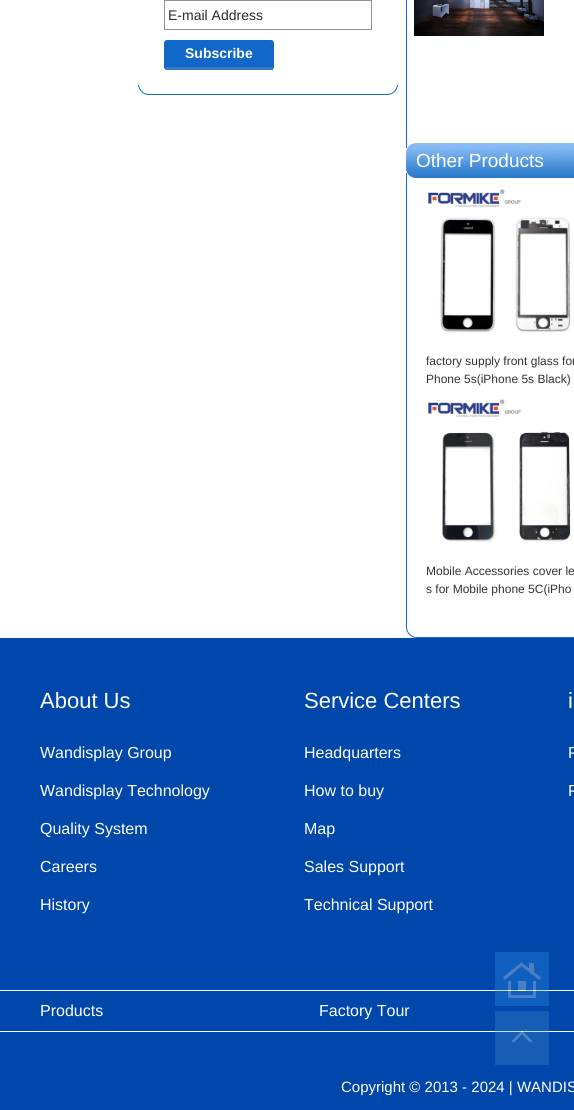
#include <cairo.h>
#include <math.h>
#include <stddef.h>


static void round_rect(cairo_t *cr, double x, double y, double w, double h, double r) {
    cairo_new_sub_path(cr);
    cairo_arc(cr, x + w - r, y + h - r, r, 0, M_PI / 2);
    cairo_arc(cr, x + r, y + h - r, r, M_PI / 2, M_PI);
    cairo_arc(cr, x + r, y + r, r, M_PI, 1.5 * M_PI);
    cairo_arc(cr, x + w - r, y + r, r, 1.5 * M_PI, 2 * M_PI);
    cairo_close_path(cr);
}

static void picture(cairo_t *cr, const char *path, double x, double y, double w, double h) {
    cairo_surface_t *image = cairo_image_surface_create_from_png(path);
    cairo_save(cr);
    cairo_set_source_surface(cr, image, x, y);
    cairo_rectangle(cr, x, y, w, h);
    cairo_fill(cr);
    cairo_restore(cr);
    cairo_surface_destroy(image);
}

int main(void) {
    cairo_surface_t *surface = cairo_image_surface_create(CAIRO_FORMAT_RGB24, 574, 1110);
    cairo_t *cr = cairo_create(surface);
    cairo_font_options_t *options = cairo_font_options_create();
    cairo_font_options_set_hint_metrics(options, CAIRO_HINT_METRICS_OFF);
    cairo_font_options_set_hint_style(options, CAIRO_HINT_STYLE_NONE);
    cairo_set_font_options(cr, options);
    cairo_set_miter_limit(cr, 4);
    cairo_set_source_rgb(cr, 1, 1, 1);
    cairo_paint(cr);
    cairo_rectangle(cr, 164.5, 0.5, 207, 29);
    cairo_set_source_rgb(cr, 0.569, 0.569, 0.569);
    cairo_set_line_width(cr, 1);
    cairo_stroke(cr);
    cairo_select_font_face(cr, "Liberation Sans", CAIRO_FONT_SLANT_NORMAL, CAIRO_FONT_WEIGHT_NORMAL);
    cairo_set_font_size(cr, 14);
    cairo_set_source_rgb(cr, 0.165, 0.165, 0.165);
    cairo_move_to(cr, 168, 20);
    cairo_show_text(cr, "E-mail Address");
    cairo_set_source_rgb(cr, 0.071, 0.408, 0.784);
    round_rect(cr, 164, 40, 110, 30, 3);
    cairo_fill(cr);
    cairo_set_source_rgb(cr, 0.208, 0.475, 0.769);
    cairo_rectangle(cr, 166, 67, 107, 3);
    cairo_fill(cr);
    cairo_select_font_face(cr, "Liberation Sans", CAIRO_FONT_SLANT_NORMAL, CAIRO_FONT_WEIGHT_BOLD);
    cairo_set_source_rgb(cr, 1, 1, 1);
    cairo_move_to(cr, 185, 58);
    cairo_show_text(cr, "Subscribe");
    picture(cr, "img1.png", 138, 85, 260, 10);
    cairo_set_source_rgb(cr, 0.078, 0.424, 0.808);
    cairo_rectangle(cr, 406, 0, 1, 628);
    cairo_fill(cr);
    picture(cr, "img2.png", 414, 0, 130, 36);
    picture(cr, "img3.png", 406, 143, 168, 35);
    cairo_select_font_face(cr, "Liberation Sans", CAIRO_FONT_SLANT_NORMAL, CAIRO_FONT_WEIGHT_NORMAL);
    cairo_set_font_size(cr, 19);
    cairo_set_source_rgb(cr, 1, 1, 1);
    cairo_move_to(cr, 416, 167);
    cairo_show_text(cr, "Other Products");
    picture(cr, "img4.png", 427, 189, 144, 144);
    cairo_set_font_size(cr, 12);
    cairo_set_source_rgb(cr, 0.2, 0.2, 0.2);
    cairo_move_to(cr, 426, 365);
    cairo_show_text(cr, "factory supply front glass for");
    cairo_move_to(cr, 426, 383);
    cairo_show_text(cr, "Phone 5s(iPhone 5s Black)");
    picture(cr, "img5.png", 427, 399, 144, 144);
    cairo_move_to(cr, 426, 575);
    cairo_show_text(cr, "Mobile Accessories cover le");
    cairo_move_to(cr, 426, 593);
    cairo_show_text(cr, "s for Mobile phone 5C(iPho");
    picture(cr, "img6.png", 406, 628, 168, 10);
    cairo_set_source_rgb(cr, 0, 0.278, 0.671);
    cairo_rectangle(cr, 0, 638, 574, 472);
    cairo_fill(cr);
    cairo_set_font_size(cr, 22);
    cairo_set_source_rgb(cr, 1, 1, 1);
    cairo_move_to(cr, 40, 708);
    cairo_show_text(cr, "About Us");
    cairo_set_font_size(cr, 16);
    cairo_move_to(cr, 40, 758);
    cairo_show_text(cr, "Wandisplay Group");
    cairo_move_to(cr, 40, 796);
    cairo_show_text(cr, "Wandisplay Technology");
    cairo_move_to(cr, 40, 834);
    cairo_show_text(cr, "Quality System");
    cairo_move_to(cr, 40, 872);
    cairo_show_text(cr, "Careers");
    cairo_move_to(cr, 40, 910);
    cairo_show_text(cr, "History");
    cairo_set_font_size(cr, 22);
    cairo_move_to(cr, 304, 708);
    cairo_show_text(cr, "Service Centers");
    cairo_set_font_size(cr, 16);
    cairo_move_to(cr, 304, 758);
    cairo_show_text(cr, "Headquarters");
    cairo_move_to(cr, 304, 796);
    cairo_show_text(cr, "How to buy");
    cairo_move_to(cr, 304, 834);
    cairo_show_text(cr, "Map");
    cairo_move_to(cr, 304, 872);
    cairo_show_text(cr, "Sales Support");
    cairo_move_to(cr, 304, 910);
    cairo_show_text(cr, "Technical Support");
    cairo_set_font_size(cr, 22);
    cairo_move_to(cr, 568, 708);
    cairo_show_text(cr, "i");
    cairo_set_font_size(cr, 16);
    cairo_move_to(cr, 568, 758);
    cairo_show_text(cr, "P");
    cairo_move_to(cr, 568, 796);
    cairo_show_text(cr, "P");
    cairo_rectangle(cr, 0, 990, 574, 1);
    cairo_fill(cr);
    cairo_rectangle(cr, 0, 1031, 574, 1);
    cairo_fill(cr);
    cairo_move_to(cr, 40, 1016);
    cairo_show_text(cr, "Products");
    cairo_move_to(cr, 319, 1016);
    cairo_show_text(cr, "Factory Tour");
    cairo_set_font_size(cr, 15);
    cairo_move_to(cr, 341, 1092);
    cairo_show_text(cr, "Copyright © 2013 - 2024 | WANDIS");
    picture(cr, "img7.png", 495, 952, 54, 54);
    picture(cr, "img8.png", 495, 1011, 54, 54);
    cairo_surface_write_to_png(surface, "page.png");
    cairo_font_options_destroy(options);
    cairo_destroy(cr);
    cairo_surface_destroy(surface);
    return 0;
}
